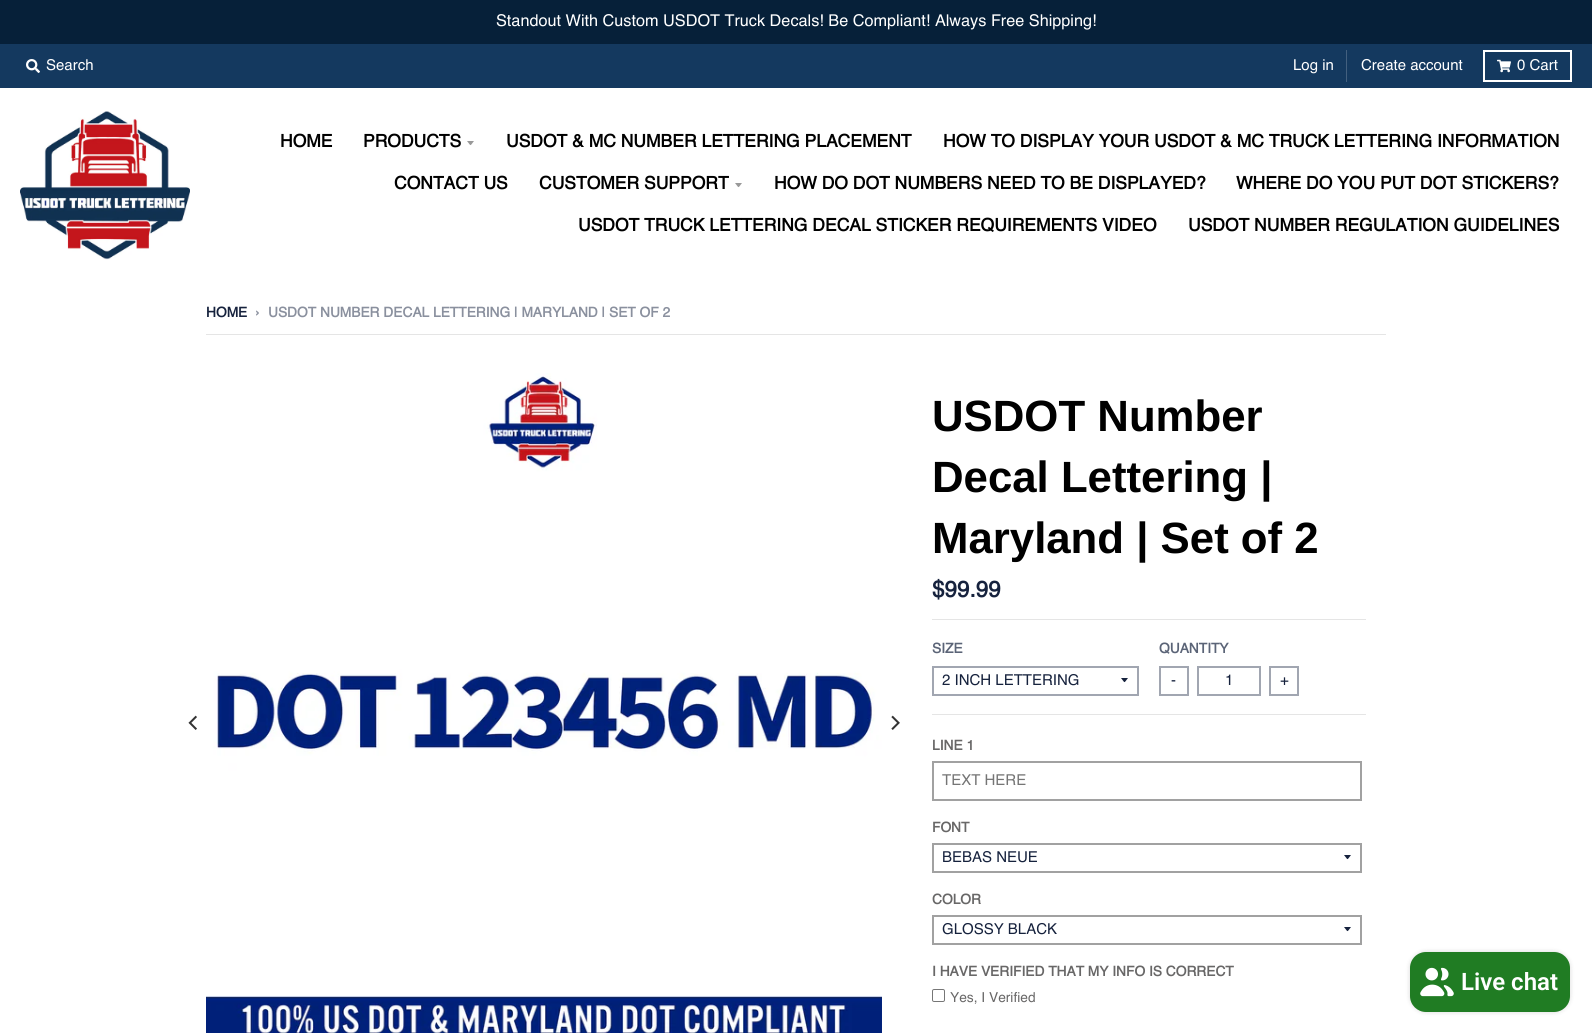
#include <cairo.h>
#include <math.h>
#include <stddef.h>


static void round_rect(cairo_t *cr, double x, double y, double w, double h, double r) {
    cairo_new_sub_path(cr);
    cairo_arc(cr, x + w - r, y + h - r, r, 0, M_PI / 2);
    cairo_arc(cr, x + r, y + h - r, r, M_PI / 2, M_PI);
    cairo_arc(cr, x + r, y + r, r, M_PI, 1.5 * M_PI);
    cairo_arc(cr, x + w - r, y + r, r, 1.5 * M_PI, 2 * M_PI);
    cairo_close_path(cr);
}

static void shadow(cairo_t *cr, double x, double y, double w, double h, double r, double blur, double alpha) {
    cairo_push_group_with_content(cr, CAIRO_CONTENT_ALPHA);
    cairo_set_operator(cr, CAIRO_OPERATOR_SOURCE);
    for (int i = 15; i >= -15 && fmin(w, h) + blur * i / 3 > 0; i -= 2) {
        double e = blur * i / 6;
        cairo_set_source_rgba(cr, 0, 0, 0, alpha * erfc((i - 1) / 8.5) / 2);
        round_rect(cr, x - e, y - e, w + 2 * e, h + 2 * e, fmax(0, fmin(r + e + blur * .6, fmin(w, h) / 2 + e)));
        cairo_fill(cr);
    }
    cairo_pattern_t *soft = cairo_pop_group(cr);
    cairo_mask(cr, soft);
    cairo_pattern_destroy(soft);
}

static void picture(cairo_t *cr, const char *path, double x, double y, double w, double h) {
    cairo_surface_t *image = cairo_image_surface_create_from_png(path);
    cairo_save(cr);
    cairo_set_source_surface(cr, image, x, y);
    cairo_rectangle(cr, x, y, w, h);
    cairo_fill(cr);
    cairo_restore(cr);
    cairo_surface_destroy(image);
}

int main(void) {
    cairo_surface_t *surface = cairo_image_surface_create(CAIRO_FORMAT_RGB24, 1592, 1033);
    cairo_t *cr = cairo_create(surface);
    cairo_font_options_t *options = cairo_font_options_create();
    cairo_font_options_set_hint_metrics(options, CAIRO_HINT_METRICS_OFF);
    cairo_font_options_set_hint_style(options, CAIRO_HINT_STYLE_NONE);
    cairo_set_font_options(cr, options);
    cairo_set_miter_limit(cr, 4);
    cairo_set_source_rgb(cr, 1, 1, 1);
    cairo_paint(cr);
    cairo_set_source_rgb(cr, 0.024, 0.125, 0.224);
    cairo_rectangle(cr, 0, 0, 1592, 44);
    cairo_fill(cr);
    cairo_select_font_face(cr, "Helvetica", CAIRO_FONT_SLANT_NORMAL, CAIRO_FONT_WEIGHT_NORMAL);
    cairo_set_font_size(cr, 16.25);
    cairo_set_source_rgb(cr, 1, 1, 1);
    cairo_move_to(cr, 496, 26);
    cairo_show_text(cr, "Standout With Custom USDOT Truck Decals! Be Compliant! Always Free Shipping!");
    cairo_set_source_rgb(cr, 0.082, 0.224, 0.373);
    cairo_rectangle(cr, 0, 44, 1592, 44);
    cairo_fill(cr);
    picture(cr, "img1.png", 26, 59, 14, 14);
    cairo_set_font_size(cr, 15);
    cairo_set_source_rgb(cr, 1, 1, 1);
    cairo_move_to(cr, 46, 70);
    cairo_show_text(cr, "Search");
    cairo_set_source_rgb(cr, 0.263, 0.376, 0.498);
    cairo_rectangle(cr, 1346, 50, 1, 32);
    cairo_fill(cr);
    cairo_set_source_rgb(cr, 1, 1, 1);
    cairo_move_to(cr, 1293, 70);
    cairo_show_text(cr, "Log in");
    cairo_move_to(cr, 1361, 70);
    cairo_show_text(cr, "Create account");
    cairo_rectangle(cr, 1484, 51, 87, 30);
    cairo_stroke(cr);
    picture(cr, "img2.png", 1497, 59, 14, 14);
    cairo_move_to(cr, 1517, 70);
    cairo_show_text(cr, "0 Cart");
    picture(cr, "img3.png", 20, 111, 170, 149);
    cairo_select_font_face(cr, "Helvetica", CAIRO_FONT_SLANT_NORMAL, CAIRO_FONT_WEIGHT_BOLD);
    cairo_set_font_size(cr, 17.5);
    cairo_set_source_rgb(cr, 0, 0, 0);
    cairo_move_to(cr, 280, 147);
    cairo_show_text(cr, "HOME");
    cairo_move_to(cr, 363, 147);
    cairo_show_text(cr, "PRODUCTS");
    cairo_set_source_rgb(cr, 0.6, 0.6, 0.6);
    cairo_new_path(cr);
    cairo_move_to(cr, 467, 141);
    cairo_curve_to(cr, 471.5, 146.5, 469.5, 146.5, 474, 141);
    cairo_close_path(cr);
    cairo_fill(cr);
    cairo_set_source_rgb(cr, 0, 0, 0);
    cairo_move_to(cr, 506, 147);
    cairo_show_text(cr, "USDOT & MC NUMBER LETTERING PLACEMENT");
    cairo_move_to(cr, 943, 147);
    cairo_show_text(cr, "HOW TO DISPLAY YOUR USDOT & MC TRUCK LETTERING INFORMATION");
    cairo_move_to(cr, 394, 189);
    cairo_show_text(cr, "CONTACT US");
    cairo_move_to(cr, 539, 189);
    cairo_show_text(cr, "CUSTOMER SUPPORT");
    cairo_set_source_rgb(cr, 0.6, 0.6, 0.6);
    cairo_new_path(cr);
    cairo_move_to(cr, 735, 183);
    cairo_curve_to(cr, 739.5, 188.5, 737.5, 188.5, 742, 183);
    cairo_close_path(cr);
    cairo_fill(cr);
    cairo_set_source_rgb(cr, 0, 0, 0);
    cairo_move_to(cr, 774, 189);
    cairo_show_text(cr, "HOW DO DOT NUMBERS NEED TO BE DISPLAYED?");
    cairo_move_to(cr, 1236, 189);
    cairo_show_text(cr, "WHERE DO YOU PUT DOT STICKERS?");
    cairo_move_to(cr, 578, 231);
    cairo_show_text(cr, "USDOT TRUCK LETTERING DECAL STICKER REQUIREMENTS VIDEO");
    cairo_move_to(cr, 1188, 231);
    cairo_show_text(cr, "USDOT NUMBER REGULATION GUIDELINES");
    cairo_set_font_size(cr, 13.75);
    cairo_set_source_rgb(cr, 0.086, 0.133, 0.239);
    cairo_move_to(cr, 206, 317);
    cairo_show_text(cr, "HOME");
    cairo_set_source_rgb(cr, 0.541, 0.565, 0.62);
    cairo_move_to(cr, 255, 317);
    cairo_show_text(cr, "›");
    cairo_move_to(cr, 268, 317);
    cairo_show_text(cr, "USDOT NUMBER DECAL LETTERING | MARYLAND | SET OF 2");
    cairo_set_source_rgb(cr, 0.898, 0.898, 0.898);
    cairo_rectangle(cr, 206, 334, 1180, 1);
    cairo_fill(cr);
    picture(cr, "img4.png", 188, 715, 9, 15);
    picture(cr, "img5.png", 206, 373, 676, 660);
    picture(cr, "img6.png", 891, 715, 9, 15);
    cairo_select_font_face(cr, "Arimo", CAIRO_FONT_SLANT_NORMAL, CAIRO_FONT_WEIGHT_BOLD);
    cairo_set_font_size(cr, 43.75);
    cairo_set_source_rgb(cr, 0, 0, 0);
    cairo_move_to(cr, 932, 431);
    cairo_show_text(cr, "USDOT Number");
    cairo_move_to(cr, 932, 492);
    cairo_show_text(cr, "Decal Lettering |");
    cairo_move_to(cr, 932, 553);
    cairo_show_text(cr, "Maryland | Set of 2");
    cairo_set_source_rgb(cr, 0.898, 0.898, 0.898);
    cairo_rectangle(cr, 932, 619, 434, 1);
    cairo_fill(cr);
    cairo_select_font_face(cr, "Helvetica", CAIRO_FONT_SLANT_NORMAL, CAIRO_FONT_WEIGHT_BOLD);
    cairo_set_font_size(cr, 22.5);
    cairo_set_source_rgb(cr, 0.086, 0.133, 0.239);
    cairo_move_to(cr, 932, 597);
    cairo_show_text(cr, "$99.99");
    cairo_set_source_rgb(cr, 0.898, 0.898, 0.898);
    cairo_rectangle(cr, 932, 714, 434, 1);
    cairo_fill(cr);
    cairo_set_font_size(cr, 13.75);
    cairo_set_source_rgb(cr, 0.357, 0.392, 0.467);
    cairo_move_to(cr, 932, 653);
    cairo_show_text(cr, "SIZE");
    cairo_set_source_rgb(cr, 0.086, 0.133, 0.239);
    cairo_new_path(cr);
    cairo_move_to(cr, 1121, 678);
    cairo_curve_to(cr, 1125.5, 683.5, 1123.5, 683.5, 1128, 678);
    cairo_close_path(cr);
    cairo_fill(cr);
    cairo_rectangle(cr, 933, 667, 205, 28);
    cairo_set_source_rgb(cr, 0.631, 0.651, 0.694);
    cairo_stroke(cr);
    cairo_select_font_face(cr, "Helvetica", CAIRO_FONT_SLANT_NORMAL, CAIRO_FONT_WEIGHT_NORMAL);
    cairo_set_font_size(cr, 15);
    cairo_set_source_rgb(cr, 0.086, 0.133, 0.239);
    cairo_move_to(cr, 942, 685);
    cairo_show_text(cr, "2 INCH LETTERING");
    cairo_select_font_face(cr, "Helvetica", CAIRO_FONT_SLANT_NORMAL, CAIRO_FONT_WEIGHT_BOLD);
    cairo_set_font_size(cr, 13.75);
    cairo_set_source_rgb(cr, 0.357, 0.392, 0.467);
    cairo_move_to(cr, 1159, 653);
    cairo_show_text(cr, "QUANTITY");
    cairo_rectangle(cr, 1160, 667, 28, 28);
    cairo_set_source_rgb(cr, 0.631, 0.651, 0.694);
    cairo_stroke(cr);
    cairo_select_font_face(cr, "Helvetica", CAIRO_FONT_SLANT_NORMAL, CAIRO_FONT_WEIGHT_NORMAL);
    cairo_set_font_size(cr, 15);
    cairo_set_source_rgb(cr, 0.086, 0.133, 0.239);
    cairo_move_to(cr, 1171, 685);
    cairo_show_text(cr, "-");
    cairo_rectangle(cr, 1198, 667, 62, 28);
    cairo_set_source_rgb(cr, 0.631, 0.651, 0.694);
    cairo_stroke(cr);
    cairo_set_source_rgb(cr, 0.086, 0.133, 0.239);
    cairo_move_to(cr, 1225, 685);
    cairo_show_text(cr, "1");
    cairo_rectangle(cr, 1270, 667, 28, 28);
    cairo_set_source_rgb(cr, 0.631, 0.651, 0.694);
    cairo_stroke(cr);
    cairo_set_source_rgb(cr, 0.086, 0.133, 0.239);
    cairo_move_to(cr, 1280, 685);
    cairo_show_text(cr, "+");
    cairo_select_font_face(cr, "Helvetica", CAIRO_FONT_SLANT_NORMAL, CAIRO_FONT_WEIGHT_BOLD);
    cairo_set_font_size(cr, 13.75);
    cairo_set_source_rgb(cr, 0.408, 0.404, 0.404);
    cairo_move_to(cr, 932, 750);
    cairo_show_text(cr, "LINE 1");
    cairo_rectangle(cr, 933, 762, 428, 38);
    cairo_set_source_rgb(cr, 0.631, 0.631, 0.631);
    cairo_stroke(cr);
    cairo_select_font_face(cr, "Helvetica", CAIRO_FONT_SLANT_NORMAL, CAIRO_FONT_WEIGHT_NORMAL);
    cairo_set_font_size(cr, 15);
    cairo_set_source_rgb(cr, 0.459, 0.459, 0.459);
    cairo_move_to(cr, 942, 785);
    cairo_show_text(cr, "TEXT HERE");
    cairo_select_font_face(cr, "Helvetica", CAIRO_FONT_SLANT_NORMAL, CAIRO_FONT_WEIGHT_BOLD);
    cairo_set_font_size(cr, 13.75);
    cairo_set_source_rgb(cr, 0.408, 0.404, 0.404);
    cairo_move_to(cr, 932, 832);
    cairo_show_text(cr, "FONT");
    cairo_set_source_rgb(cr, 0.086, 0.133, 0.239);
    cairo_new_path(cr);
    cairo_move_to(cr, 1344, 855);
    cairo_curve_to(cr, 1348.5, 860.5, 1346.5, 860.5, 1351, 855);
    cairo_close_path(cr);
    cairo_fill(cr);
    cairo_rectangle(cr, 933, 844, 428, 28);
    cairo_set_source_rgb(cr, 0.631, 0.631, 0.631);
    cairo_stroke(cr);
    cairo_select_font_face(cr, "Helvetica", CAIRO_FONT_SLANT_NORMAL, CAIRO_FONT_WEIGHT_NORMAL);
    cairo_set_font_size(cr, 15);
    cairo_set_source_rgb(cr, 0.086, 0.133, 0.239);
    cairo_move_to(cr, 942, 862);
    cairo_show_text(cr, "BEBAS NEUE");
    cairo_select_font_face(cr, "Helvetica", CAIRO_FONT_SLANT_NORMAL, CAIRO_FONT_WEIGHT_BOLD);
    cairo_set_font_size(cr, 13.75);
    cairo_set_source_rgb(cr, 0.408, 0.404, 0.404);
    cairo_move_to(cr, 932, 904);
    cairo_show_text(cr, "COLOR");
    cairo_set_source_rgb(cr, 0.086, 0.133, 0.239);
    cairo_new_path(cr);
    cairo_move_to(cr, 1344, 927);
    cairo_curve_to(cr, 1348.5, 932.5, 1346.5, 932.5, 1351, 927);
    cairo_close_path(cr);
    cairo_fill(cr);
    cairo_rectangle(cr, 933, 916, 428, 28);
    cairo_set_source_rgb(cr, 0.631, 0.631, 0.631);
    cairo_stroke(cr);
    cairo_select_font_face(cr, "Helvetica", CAIRO_FONT_SLANT_NORMAL, CAIRO_FONT_WEIGHT_NORMAL);
    cairo_set_font_size(cr, 15);
    cairo_set_source_rgb(cr, 0.086, 0.133, 0.239);
    cairo_move_to(cr, 942, 934);
    cairo_show_text(cr, "GLOSSY BLACK");
    cairo_select_font_face(cr, "Helvetica", CAIRO_FONT_SLANT_NORMAL, CAIRO_FONT_WEIGHT_BOLD);
    cairo_set_font_size(cr, 13.75);
    cairo_set_source_rgb(cr, 0.408, 0.404, 0.404);
    cairo_move_to(cr, 932, 976);
    cairo_show_text(cr, "I HAVE VERIFIED THAT MY INFO IS CORRECT");
    round_rect(cr, 932.5, 989.5, 12, 12, 1.5);
    cairo_set_source_rgb(cr, 0.463, 0.463, 0.463);
    cairo_set_line_width(cr, 1);
    cairo_stroke(cr);
    cairo_select_font_face(cr, "Helvetica", CAIRO_FONT_SLANT_NORMAL, CAIRO_FONT_WEIGHT_NORMAL);
    cairo_set_source_rgb(cr, 0.408, 0.404, 0.404);
    cairo_move_to(cr, 950, 1002);
    cairo_show_text(cr, "Yes, I Verified");
    cairo_set_source_rgb(cr, 0, 0, 0);
    shadow(cr, 1410, 952, 160, 60, 16, 2.5, 0.15);
    cairo_set_source_rgb(cr, 0.125, 0.486, 0.137);
    round_rect(cr, 1410, 952, 160, 60, 16);
    cairo_fill(cr);
    picture(cr, "img7.png", 1420, 967, 34, 30);
    cairo_select_font_face(cr, "Roboto SemiBold", CAIRO_FONT_SLANT_NORMAL, CAIRO_FONT_WEIGHT_NORMAL);
    cairo_set_font_size(cr, 24);
    cairo_set_source_rgb(cr, 1, 1, 1);
    cairo_move_to(cr, 1461, 990);
    cairo_show_text(cr, "Live chat");
    cairo_surface_write_to_png(surface, "page.png");
    cairo_font_options_destroy(options);
    cairo_destroy(cr);
    cairo_surface_destroy(surface);
    return 0;
}
